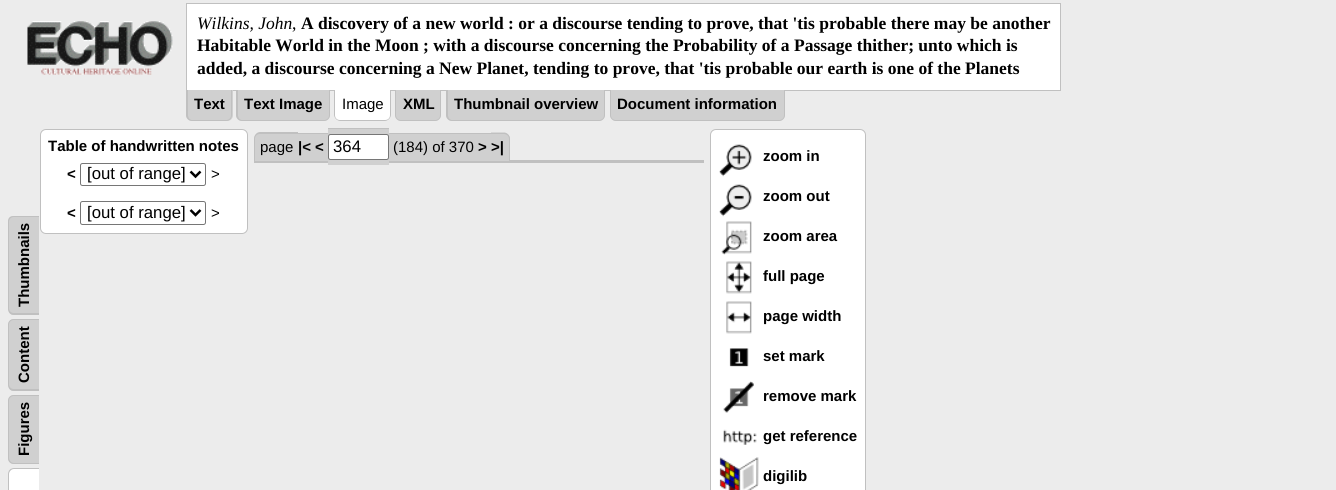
#include <cairo.h>
#include <math.h>
#include <stddef.h>


static void round_rect(cairo_t *cr, double x, double y, double w, double h, double r) {
    cairo_new_sub_path(cr);
    cairo_arc(cr, x + w - r, y + h - r, r, 0, M_PI / 2);
    cairo_arc(cr, x + r, y + h - r, r, M_PI / 2, M_PI);
    cairo_arc(cr, x + r, y + r, r, M_PI, 1.5 * M_PI);
    cairo_arc(cr, x + w - r, y + r, r, 1.5 * M_PI, 2 * M_PI);
    cairo_close_path(cr);
}

static void picture(cairo_t *cr, const char *path, double x, double y, double w, double h) {
    cairo_surface_t *image = cairo_image_surface_create_from_png(path);
    cairo_save(cr);
    cairo_set_source_surface(cr, image, x, y);
    cairo_rectangle(cr, x, y, w, h);
    cairo_fill(cr);
    cairo_restore(cr);
    cairo_surface_destroy(image);
}

int main(void) {
    cairo_surface_t *surface = cairo_image_surface_create(CAIRO_FORMAT_RGB24, 1336, 490);
    cairo_t *cr = cairo_create(surface);
    cairo_font_options_t *options = cairo_font_options_create();
    cairo_font_options_set_hint_metrics(options, CAIRO_HINT_METRICS_OFF);
    cairo_font_options_set_hint_style(options, CAIRO_HINT_STYLE_NONE);
    cairo_set_font_options(cr, options);
    cairo_set_miter_limit(cr, 4);
    cairo_set_source_rgb(cr, 0.922, 0.922, 0.922);
    cairo_paint(cr);
    picture(cr, "img1.png", 27, 21, 146, 54);
    cairo_set_source_rgb(cr, 1, 1, 1);
    cairo_rectangle(cr, 186.5, 3.5, 874, 87);
    cairo_fill_preserve(cr);
    cairo_set_source_rgb(cr, 0.753, 0.753, 0.753);
    cairo_set_line_width(cr, 1);
    cairo_stroke(cr);
    cairo_select_font_face(cr, "Liberation Serif", CAIRO_FONT_SLANT_ITALIC, CAIRO_FONT_WEIGHT_NORMAL);
    cairo_set_font_size(cr, 17.5);
    cairo_set_source_rgb(cr, 0, 0, 0);
    cairo_move_to(cr, 197, 29);
    cairo_show_text(cr, "Wilkins, John");
    cairo_select_font_face(cr, "Liberation Serif", CAIRO_FONT_SLANT_NORMAL, CAIRO_FONT_WEIGHT_NORMAL);
    cairo_move_to(cr, 292, 29);
    cairo_show_text(cr, ",");
    cairo_select_font_face(cr, "Liberation Serif", CAIRO_FONT_SLANT_NORMAL, CAIRO_FONT_WEIGHT_BOLD);
    cairo_move_to(cr, 301, 29);
    cairo_show_text(cr, "A discovery of a new world : or a discourse tending to prove, that 'tis probable there may be another");
    cairo_move_to(cr, 197, 51);
    cairo_show_text(cr, "Habitable World in the Moon ; with a discourse concerning the Probability of a Passage thither; unto which is");
    cairo_move_to(cr, 197, 74);
    cairo_show_text(cr, "added, a discourse concerning a New Planet, tending to prove, that 'tis probable our earth is one of the Planets");
    cairo_set_source_rgb(cr, 0.816, 0.816, 0.816);
    cairo_new_path(cr);
    cairo_move_to(cr, 186, 90);
    cairo_line_to(cr, 233, 90);
    cairo_line_to(cr, 233, 115);
    cairo_curve_to(cr, 233, 118.5, 230.5, 121, 227, 121);
    cairo_line_to(cr, 192, 121);
    cairo_curve_to(cr, 188.5, 121, 186, 118.5, 186, 115);
    cairo_close_path(cr);
    cairo_fill(cr);
    cairo_set_source_rgb(cr, 0.753, 0.753, 0.753);
    cairo_set_fill_rule(cr, CAIRO_FILL_RULE_EVEN_ODD);
    cairo_new_path(cr);
    cairo_move_to(cr, 186, 90);
    cairo_line_to(cr, 232, 90);
    cairo_line_to(cr, 232, 115);
    cairo_curve_to(cr, 232, 118, 230, 121, 226, 121);
    cairo_line_to(cr, 192, 121);
    cairo_curve_to(cr, 189, 121, 186, 118, 186, 115);
    cairo_close_path(cr);
    cairo_move_to(cr, 188, 90);
    cairo_line_to(cr, 231, 90);
    cairo_line_to(cr, 231, 115);
    cairo_curve_to(cr, 231, 118, 229, 120, 226, 120);
    cairo_line_to(cr, 192, 120);
    cairo_curve_to(cr, 190, 120, 188, 118, 188, 115);
    cairo_close_path(cr);
    cairo_fill(cr);
    cairo_select_font_face(cr, "Liberation Sans", CAIRO_FONT_SLANT_NORMAL, CAIRO_FONT_WEIGHT_BOLD);
    cairo_set_font_size(cr, 15);
    cairo_set_source_rgb(cr, 0, 0, 0);
    cairo_move_to(cr, 194, 109);
    cairo_show_text(cr, "Text");
    cairo_set_source_rgb(cr, 0.816, 0.816, 0.816);
    cairo_new_path(cr);
    cairo_move_to(cr, 236, 90);
    cairo_line_to(cr, 330, 90);
    cairo_line_to(cr, 330, 115);
    cairo_curve_to(cr, 330, 118.5, 327.5, 121, 324, 121);
    cairo_line_to(cr, 242, 121);
    cairo_curve_to(cr, 238.5, 121, 236, 118.5, 236, 115);
    cairo_close_path(cr);
    cairo_fill(cr);
    cairo_set_source_rgb(cr, 0.753, 0.753, 0.753);
    cairo_new_path(cr);
    cairo_move_to(cr, 236, 90);
    cairo_line_to(cr, 330, 90);
    cairo_line_to(cr, 330, 115);
    cairo_curve_to(cr, 330, 118, 327, 121, 324, 121);
    cairo_line_to(cr, 242, 121);
    cairo_curve_to(cr, 239, 121, 236, 118, 236, 115);
    cairo_close_path(cr);
    cairo_move_to(cr, 238, 90);
    cairo_line_to(cr, 329, 90);
    cairo_line_to(cr, 329, 115);
    cairo_curve_to(cr, 329, 118, 327, 120, 324, 120);
    cairo_line_to(cr, 242, 120);
    cairo_curve_to(cr, 240, 120, 238, 118, 238, 115);
    cairo_close_path(cr);
    cairo_fill(cr);
    cairo_set_source_rgb(cr, 0, 0, 0);
    cairo_move_to(cr, 244, 109);
    cairo_show_text(cr, "Text Image");
    cairo_set_source_rgb(cr, 1, 1, 1);
    cairo_new_path(cr);
    cairo_move_to(cr, 334, 90);
    cairo_line_to(cr, 391, 90);
    cairo_line_to(cr, 391, 115);
    cairo_curve_to(cr, 391, 118.5, 388.5, 121, 385, 121);
    cairo_line_to(cr, 340, 121);
    cairo_curve_to(cr, 336.5, 121, 334, 118.5, 334, 115);
    cairo_close_path(cr);
    cairo_fill(cr);
    cairo_set_source_rgb(cr, 0.753, 0.753, 0.753);
    cairo_new_path(cr);
    cairo_move_to(cr, 334, 90);
    cairo_line_to(cr, 391, 90);
    cairo_line_to(cr, 391, 115);
    cairo_curve_to(cr, 391, 118, 388, 121, 385, 121);
    cairo_line_to(cr, 340, 121);
    cairo_curve_to(cr, 337, 121, 334, 118, 334, 115);
    cairo_close_path(cr);
    cairo_move_to(cr, 335, 90);
    cairo_line_to(cr, 390, 90);
    cairo_line_to(cr, 390, 115);
    cairo_curve_to(cr, 390, 118, 388, 120, 385, 120);
    cairo_line_to(cr, 340, 120);
    cairo_curve_to(cr, 337, 120, 335, 118, 335, 115);
    cairo_close_path(cr);
    cairo_fill(cr);
    cairo_select_font_face(cr, "Liberation Sans", CAIRO_FONT_SLANT_NORMAL, CAIRO_FONT_WEIGHT_NORMAL);
    cairo_set_source_rgb(cr, 0, 0, 0);
    cairo_move_to(cr, 342, 109);
    cairo_show_text(cr, "Image");
    cairo_set_source_rgb(cr, 0.816, 0.816, 0.816);
    cairo_new_path(cr);
    cairo_move_to(cr, 395, 90);
    cairo_line_to(cr, 441, 90);
    cairo_line_to(cr, 441, 115);
    cairo_curve_to(cr, 441, 118.5, 438.5, 121, 435, 121);
    cairo_line_to(cr, 401, 121);
    cairo_curve_to(cr, 397.5, 121, 395, 118.5, 395, 115);
    cairo_close_path(cr);
    cairo_fill(cr);
    cairo_set_source_rgb(cr, 0.753, 0.753, 0.753);
    cairo_new_path(cr);
    cairo_move_to(cr, 395, 90);
    cairo_line_to(cr, 441, 90);
    cairo_line_to(cr, 441, 115);
    cairo_curve_to(cr, 441, 118, 438, 121, 435, 121);
    cairo_line_to(cr, 401, 121);
    cairo_curve_to(cr, 398, 121, 395, 118, 395, 115);
    cairo_close_path(cr);
    cairo_move_to(cr, 396, 90);
    cairo_line_to(cr, 440, 90);
    cairo_line_to(cr, 440, 115);
    cairo_curve_to(cr, 440, 118, 438, 120, 435, 120);
    cairo_line_to(cr, 401, 120);
    cairo_curve_to(cr, 398, 120, 396, 118, 396, 115);
    cairo_close_path(cr);
    cairo_fill(cr);
    cairo_select_font_face(cr, "Liberation Sans", CAIRO_FONT_SLANT_NORMAL, CAIRO_FONT_WEIGHT_BOLD);
    cairo_set_source_rgb(cr, 0, 0, 0);
    cairo_move_to(cr, 403, 109);
    cairo_show_text(cr, "XML");
    cairo_set_source_rgb(cr, 0.816, 0.816, 0.816);
    cairo_new_path(cr);
    cairo_move_to(cr, 446, 90);
    cairo_line_to(cr, 605, 90);
    cairo_line_to(cr, 605, 115);
    cairo_curve_to(cr, 605, 118.5, 602.5, 121, 599, 121);
    cairo_line_to(cr, 452, 121);
    cairo_curve_to(cr, 448.5, 121, 446, 118.5, 446, 115);
    cairo_close_path(cr);
    cairo_fill(cr);
    cairo_set_source_rgb(cr, 0.753, 0.753, 0.753);
    cairo_new_path(cr);
    cairo_move_to(cr, 446, 90);
    cairo_line_to(cr, 605, 90);
    cairo_line_to(cr, 605, 115);
    cairo_curve_to(cr, 605, 118, 602, 121, 599, 121);
    cairo_line_to(cr, 452, 121);
    cairo_curve_to(cr, 449, 121, 446, 118, 446, 115);
    cairo_close_path(cr);
    cairo_move_to(cr, 448, 90);
    cairo_line_to(cr, 604, 90);
    cairo_line_to(cr, 604, 115);
    cairo_curve_to(cr, 604, 118, 602, 120, 599, 120);
    cairo_line_to(cr, 452, 120);
    cairo_curve_to(cr, 450, 120, 448, 118, 448, 115);
    cairo_close_path(cr);
    cairo_fill(cr);
    cairo_set_source_rgb(cr, 0, 0, 0);
    cairo_move_to(cr, 454, 109);
    cairo_show_text(cr, "Thumbnail overview");
    cairo_set_source_rgb(cr, 0.816, 0.816, 0.816);
    cairo_new_path(cr);
    cairo_move_to(cr, 610, 90);
    cairo_line_to(cr, 785, 90);
    cairo_line_to(cr, 785, 115);
    cairo_curve_to(cr, 785, 118.5, 782.5, 121, 779, 121);
    cairo_line_to(cr, 616, 121);
    cairo_curve_to(cr, 612.5, 121, 610, 118.5, 610, 115);
    cairo_close_path(cr);
    cairo_fill(cr);
    cairo_set_source_rgb(cr, 0.753, 0.753, 0.753);
    cairo_new_path(cr);
    cairo_move_to(cr, 610, 90);
    cairo_line_to(cr, 785, 90);
    cairo_line_to(cr, 785, 115);
    cairo_curve_to(cr, 785, 118, 782, 121, 779, 121);
    cairo_line_to(cr, 616, 121);
    cairo_curve_to(cr, 613, 121, 610, 118, 610, 115);
    cairo_close_path(cr);
    cairo_move_to(cr, 611, 90);
    cairo_line_to(cr, 784, 90);
    cairo_line_to(cr, 784, 115);
    cairo_curve_to(cr, 784, 118, 782, 120, 779, 120);
    cairo_line_to(cr, 616, 120);
    cairo_curve_to(cr, 613, 120, 611, 118, 611, 115);
    cairo_close_path(cr);
    cairo_fill(cr);
    cairo_set_source_rgb(cr, 0, 0, 0);
    cairo_move_to(cr, 617, 109);
    cairo_show_text(cr, "Document information");
    cairo_set_source_rgb(cr, 1, 1, 1);
    round_rect(cr, 40.5, 129.5, 207, 104, 5.5);
    cairo_fill_preserve(cr);
    cairo_set_source_rgb(cr, 0.753, 0.753, 0.753);
    cairo_stroke(cr);
    cairo_set_source_rgb(cr, 0, 0, 0);
    cairo_move_to(cr, 48, 151);
    cairo_show_text(cr, "Table of handwritten notes");
    cairo_move_to(cr, 67, 179);
    cairo_show_text(cr, "<");
    round_rect(cr, 80.5, 163.5, 125, 22, 2);
    cairo_set_source_rgb(cr, 0.463, 0.463, 0.463);
    cairo_stroke(cr);
    cairo_new_path(cr);
    cairo_move_to(cr, 190.5, 171.5);
    cairo_line_to(cr, 195.5, 176.5);
    cairo_line_to(cr, 200.5, 171.5);
    cairo_set_source_rgb(cr, 0, 0, 0);
    cairo_set_line_width(cr, 2.5);
    cairo_stroke(cr);
    cairo_select_font_face(cr, "Liberation Sans", CAIRO_FONT_SLANT_NORMAL, CAIRO_FONT_WEIGHT_NORMAL);
    cairo_set_font_size(cr, 16.75);
    cairo_move_to(cr, 87, 179);
    cairo_show_text(cr, "[out of range]");
    cairo_set_font_size(cr, 15);
    cairo_move_to(cr, 211, 179);
    cairo_show_text(cr, ">");
    cairo_select_font_face(cr, "Liberation Sans", CAIRO_FONT_SLANT_NORMAL, CAIRO_FONT_WEIGHT_BOLD);
    cairo_move_to(cr, 67, 218);
    cairo_show_text(cr, "<");
    round_rect(cr, 80.5, 201.5, 125, 23, 2);
    cairo_set_source_rgb(cr, 0.463, 0.463, 0.463);
    cairo_set_line_width(cr, 1);
    cairo_stroke(cr);
    cairo_new_path(cr);
    cairo_move_to(cr, 190.5, 210);
    cairo_line_to(cr, 195.5, 215);
    cairo_line_to(cr, 200.5, 210);
    cairo_set_source_rgb(cr, 0, 0, 0);
    cairo_set_line_width(cr, 2.5);
    cairo_stroke(cr);
    cairo_select_font_face(cr, "Liberation Sans", CAIRO_FONT_SLANT_NORMAL, CAIRO_FONT_WEIGHT_NORMAL);
    cairo_set_font_size(cr, 16.75);
    cairo_move_to(cr, 87, 218);
    cairo_show_text(cr, "[out of range]");
    cairo_set_font_size(cr, 15);
    cairo_move_to(cr, 211, 218);
    cairo_show_text(cr, ">");
    cairo_set_source_rgb(cr, 0.816, 0.816, 0.816);
    cairo_set_fill_rule(cr, CAIRO_FILL_RULE_WINDING);
    cairo_new_path(cr);
    cairo_move_to(cr, 8, 308);
    cairo_line_to(cr, 8, 222);
    cairo_curve_to(cr, 8, 218, 10, 216, 14, 216);
    cairo_line_to(cr, 39, 216);
    cairo_line_to(cr, 39, 315);
    cairo_line_to(cr, 14, 315);
    cairo_curve_to(cr, 10, 315, 8, 312, 8, 308);
    cairo_close_path(cr);
    cairo_fill(cr);
    cairo_set_source_rgb(cr, 0.753, 0.753, 0.753);
    cairo_set_fill_rule(cr, CAIRO_FILL_RULE_EVEN_ODD);
    cairo_new_path(cr);
    cairo_move_to(cr, 8, 308);
    cairo_line_to(cr, 8, 222);
    cairo_curve_to(cr, 8, 218, 10, 216, 14, 216);
    cairo_line_to(cr, 39, 216);
    cairo_line_to(cr, 39, 315);
    cairo_line_to(cr, 14, 315);
    cairo_curve_to(cr, 10, 315, 8, 312, 8, 308);
    cairo_close_path(cr);
    cairo_move_to(cr, 9, 308);
    cairo_line_to(cr, 9, 222);
    cairo_curve_to(cr, 9, 219, 11, 217, 14, 217);
    cairo_line_to(cr, 39, 217);
    cairo_line_to(cr, 39, 313);
    cairo_line_to(cr, 14, 313);
    cairo_curve_to(cr, 11, 313, 9, 311, 9, 308);
    cairo_close_path(cr);
    cairo_fill(cr);
    cairo_select_font_face(cr, "Liberation Sans", CAIRO_FONT_SLANT_NORMAL, CAIRO_FONT_WEIGHT_BOLD);
    cairo_set_source_rgb(cr, 0, 0, 0);
    cairo_save(cr);
    cairo_translate(cr, 29, 307);
    cairo_rotate(cr, -90 * M_PI / 180);
    cairo_move_to(cr, 0, 0);
    cairo_show_text(cr, "Thumbnails");
    cairo_restore(cr);
    cairo_set_source_rgb(cr, 0.816, 0.816, 0.816);
    cairo_set_fill_rule(cr, CAIRO_FILL_RULE_WINDING);
    cairo_new_path(cr);
    cairo_move_to(cr, 8, 384);
    cairo_line_to(cr, 8, 325);
    cairo_curve_to(cr, 8, 322, 10, 319, 14, 319);
    cairo_line_to(cr, 39, 319);
    cairo_line_to(cr, 39, 391);
    cairo_line_to(cr, 14, 391);
    cairo_curve_to(cr, 10, 391, 8, 388, 8, 384);
    cairo_close_path(cr);
    cairo_fill(cr);
    cairo_set_source_rgb(cr, 0.753, 0.753, 0.753);
    cairo_set_fill_rule(cr, CAIRO_FILL_RULE_EVEN_ODD);
    cairo_new_path(cr);
    cairo_move_to(cr, 8, 384);
    cairo_line_to(cr, 8, 325);
    cairo_curve_to(cr, 8, 322, 10, 319, 14, 319);
    cairo_line_to(cr, 39, 319);
    cairo_line_to(cr, 39, 391);
    cairo_line_to(cr, 14, 391);
    cairo_curve_to(cr, 10, 391, 8, 388, 8, 384);
    cairo_close_path(cr);
    cairo_move_to(cr, 9, 384);
    cairo_line_to(cr, 9, 325);
    cairo_curve_to(cr, 9, 322, 11, 320, 14, 320);
    cairo_line_to(cr, 39, 320);
    cairo_line_to(cr, 39, 389);
    cairo_line_to(cr, 14, 389);
    cairo_curve_to(cr, 11, 389, 9, 387, 9, 384);
    cairo_close_path(cr);
    cairo_fill(cr);
    cairo_set_source_rgb(cr, 0, 0, 0);
    cairo_save(cr);
    cairo_translate(cr, 29, 383);
    cairo_rotate(cr, -90 * M_PI / 180);
    cairo_move_to(cr, 0, 0);
    cairo_show_text(cr, "Content");
    cairo_restore(cr);
    cairo_set_source_rgb(cr, 0.816, 0.816, 0.816);
    cairo_set_fill_rule(cr, CAIRO_FILL_RULE_WINDING);
    cairo_new_path(cr);
    cairo_move_to(cr, 8, 458);
    cairo_line_to(cr, 8, 401);
    cairo_curve_to(cr, 8, 398, 10, 395, 14, 395);
    cairo_line_to(cr, 39, 395);
    cairo_line_to(cr, 39, 464);
    cairo_line_to(cr, 14, 464);
    cairo_curve_to(cr, 10, 464, 8, 461, 8, 458);
    cairo_close_path(cr);
    cairo_fill(cr);
    cairo_set_source_rgb(cr, 0.753, 0.753, 0.753);
    cairo_set_fill_rule(cr, CAIRO_FILL_RULE_EVEN_ODD);
    cairo_new_path(cr);
    cairo_move_to(cr, 8, 458);
    cairo_line_to(cr, 8, 401);
    cairo_curve_to(cr, 8, 398, 10, 395, 14, 395);
    cairo_line_to(cr, 39, 395);
    cairo_line_to(cr, 39, 464);
    cairo_line_to(cr, 14, 464);
    cairo_curve_to(cr, 10, 464, 8, 461, 8, 458);
    cairo_close_path(cr);
    cairo_move_to(cr, 9, 458);
    cairo_line_to(cr, 9, 401);
    cairo_curve_to(cr, 9, 398, 11, 396, 14, 396);
    cairo_line_to(cr, 39, 396);
    cairo_line_to(cr, 39, 463);
    cairo_line_to(cr, 14, 463);
    cairo_curve_to(cr, 11, 463, 9, 460, 9, 458);
    cairo_close_path(cr);
    cairo_fill(cr);
    cairo_set_source_rgb(cr, 0, 0, 0);
    cairo_save(cr);
    cairo_translate(cr, 29, 456);
    cairo_rotate(cr, -90 * M_PI / 180);
    cairo_move_to(cr, 0, 0);
    cairo_show_text(cr, "Figures");
    cairo_restore(cr);
    cairo_set_source_rgb(cr, 1, 1, 1);
    cairo_set_fill_rule(cr, CAIRO_FILL_RULE_WINDING);
    cairo_new_path(cr);
    cairo_move_to(cr, 8, 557);
    cairo_line_to(cr, 8, 474);
    cairo_curve_to(cr, 8, 471, 10, 468, 14, 468);
    cairo_line_to(cr, 39, 468);
    cairo_line_to(cr, 39, 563);
    cairo_line_to(cr, 14, 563);
    cairo_curve_to(cr, 10, 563, 8, 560, 8, 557);
    cairo_close_path(cr);
    cairo_fill(cr);
    cairo_set_source_rgb(cr, 0.753, 0.753, 0.753);
    cairo_set_fill_rule(cr, CAIRO_FILL_RULE_EVEN_ODD);
    cairo_new_path(cr);
    cairo_move_to(cr, 8, 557);
    cairo_line_to(cr, 8, 474);
    cairo_curve_to(cr, 8, 471, 10, 468, 14, 468);
    cairo_line_to(cr, 39, 468);
    cairo_line_to(cr, 39, 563);
    cairo_line_to(cr, 14, 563);
    cairo_curve_to(cr, 10, 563, 8, 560, 8, 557);
    cairo_close_path(cr);
    cairo_move_to(cr, 9, 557);
    cairo_line_to(cr, 9, 474);
    cairo_curve_to(cr, 9, 472, 11, 469, 14, 469);
    cairo_line_to(cr, 39, 469);
    cairo_line_to(cr, 39, 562);
    cairo_line_to(cr, 14, 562);
    cairo_curve_to(cr, 11, 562, 9, 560, 9, 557);
    cairo_close_path(cr);
    cairo_fill(cr);
    cairo_rectangle(cr, 254, 160, 450, 3);
    cairo_fill(cr);
    cairo_set_source_rgb(cr, 0.816, 0.816, 0.816);
    cairo_new_path(cr);
    cairo_move_to(cr, 260, 133);
    cairo_line_to(cr, 298, 133);
    cairo_line_to(cr, 298, 161);
    cairo_line_to(cr, 254, 161);
    cairo_line_to(cr, 254, 139);
    cairo_curve_to(cr, 254, 135.5, 256.5, 133, 260, 133);
    cairo_close_path(cr);
    cairo_fill(cr);
    cairo_set_source_rgb(cr, 0.753, 0.753, 0.753);
    cairo_new_path(cr);
    cairo_move_to(cr, 260, 132);
    cairo_line_to(cr, 298, 132);
    cairo_line_to(cr, 298, 161);
    cairo_line_to(cr, 254, 161);
    cairo_line_to(cr, 254, 139);
    cairo_curve_to(cr, 254, 135, 257, 132, 260, 132);
    cairo_close_path(cr);
    cairo_move_to(cr, 260, 134);
    cairo_line_to(cr, 298, 134);
    cairo_line_to(cr, 298, 161);
    cairo_line_to(cr, 255, 161);
    cairo_line_to(cr, 255, 139);
    cairo_curve_to(cr, 255, 136, 257, 134, 260, 134);
    cairo_close_path(cr);
    cairo_fill(cr);
    cairo_set_source_rgb(cr, 0.816, 0.816, 0.816);
    cairo_rectangle(cr, 298, 134, 13, 27);
    cairo_fill(cr);
    cairo_set_source_rgb(cr, 0.753, 0.753, 0.753);
    cairo_rectangle(cr, 298, 133, 13, 1);
    cairo_fill(cr);
    cairo_set_source_rgb(cr, 0.816, 0.816, 0.816);
    cairo_rectangle(cr, 311, 133, 4, 28);
    cairo_fill(cr);
    cairo_set_source_rgb(cr, 0.753, 0.753, 0.753);
    cairo_rectangle(cr, 311, 133, 13, 1);
    cairo_fill(cr);
    cairo_set_source_rgb(cr, 0.816, 0.816, 0.816);
    cairo_rectangle(cr, 315, 134, 9, 27);
    cairo_fill(cr);
    cairo_rectangle(cr, 324, 133, 4, 28);
    cairo_fill(cr);
    cairo_set_source_rgb(cr, 0.753, 0.753, 0.753);
    cairo_rectangle(cr, 324, 133, 4, 1);
    cairo_fill(cr);
    cairo_set_source_rgb(cr, 0.816, 0.816, 0.816);
    cairo_rectangle(cr, 328, 129, 61, 36);
    cairo_fill(cr);
    cairo_set_source_rgb(cr, 0.753, 0.753, 0.753);
    cairo_rectangle(cr, 328, 128, 61, 1);
    cairo_fill(cr);
    cairo_set_source_rgb(cr, 0.816, 0.816, 0.816);
    cairo_rectangle(cr, 389, 133, 5, 28);
    cairo_fill(cr);
    cairo_set_source_rgb(cr, 0.753, 0.753, 0.753);
    cairo_rectangle(cr, 389, 133, 99, 1);
    cairo_fill(cr);
    cairo_set_source_rgb(cr, 0.816, 0.816, 0.816);
    cairo_rectangle(cr, 394, 134, 94, 27);
    cairo_fill(cr);
    cairo_rectangle(cr, 488, 133, 3, 28);
    cairo_fill(cr);
    cairo_set_source_rgb(cr, 0.753, 0.753, 0.753);
    cairo_rectangle(cr, 488, 133, 4, 1);
    cairo_fill(cr);
    cairo_set_source_rgb(cr, 0.816, 0.816, 0.816);
    cairo_new_path(cr);
    cairo_move_to(cr, 491, 133);
    cairo_line_to(cr, 504, 133);
    cairo_curve_to(cr, 507.5, 133, 510, 135.5, 510, 139);
    cairo_line_to(cr, 510, 161);
    cairo_line_to(cr, 491, 161);
    cairo_close_path(cr);
    cairo_fill(cr);
    cairo_set_source_rgb(cr, 0.753, 0.753, 0.753);
    cairo_new_path(cr);
    cairo_move_to(cr, 491, 132.5);
    cairo_line_to(cr, 504, 132.5);
    cairo_curve_to(cr, 507, 132.5, 510, 135.5, 510, 139);
    cairo_line_to(cr, 510, 161);
    cairo_line_to(cr, 491, 161);
    cairo_close_path(cr);
    cairo_move_to(cr, 491, 134);
    cairo_line_to(cr, 504, 134);
    cairo_curve_to(cr, 506.5, 134, 509, 136, 509, 139);
    cairo_line_to(cr, 509, 161);
    cairo_line_to(cr, 491, 161);
    cairo_close_path(cr);
    cairo_fill(cr);
    cairo_select_font_face(cr, "Liberation Sans", CAIRO_FONT_SLANT_NORMAL, CAIRO_FONT_WEIGHT_NORMAL);
    cairo_set_source_rgb(cr, 0, 0, 0);
    cairo_move_to(cr, 260, 152);
    cairo_show_text(cr, "page");
    cairo_select_font_face(cr, "Liberation Sans", CAIRO_FONT_SLANT_NORMAL, CAIRO_FONT_WEIGHT_BOLD);
    cairo_move_to(cr, 298, 152);
    cairo_show_text(cr, "|< <");
    cairo_set_source_rgb(cr, 1, 1, 1);
    round_rect(cr, 328.5, 134.5, 60, 25, 2);
    cairo_fill_preserve(cr);
    cairo_set_source_rgb(cr, 0.463, 0.463, 0.463);
    cairo_set_line_width(cr, 1);
    cairo_stroke(cr);
    cairo_select_font_face(cr, "Liberation Sans", CAIRO_FONT_SLANT_NORMAL, CAIRO_FONT_WEIGHT_NORMAL);
    cairo_set_font_size(cr, 16.75);
    cairo_set_source_rgb(cr, 0, 0, 0);
    cairo_move_to(cr, 333, 152);
    cairo_show_text(cr, "364");
    cairo_set_font_size(cr, 15);
    cairo_move_to(cr, 393, 152);
    cairo_show_text(cr, "(184) of 370");
    cairo_select_font_face(cr, "Liberation Sans", CAIRO_FONT_SLANT_NORMAL, CAIRO_FONT_WEIGHT_BOLD);
    cairo_move_to(cr, 478, 152);
    cairo_show_text(cr, "> >|");
    cairo_set_source_rgb(cr, 1, 1, 1);
    round_rect(cr, 710.5, 129.5, 155, 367, 5.5);
    cairo_fill_preserve(cr);
    cairo_set_source_rgb(cr, 0.753, 0.753, 0.753);
    cairo_stroke(cr);
    picture(cr, "img2.png", 719, 144, 33, 33);
    cairo_set_source_rgb(cr, 0, 0, 0);
    cairo_move_to(cr, 763, 161);
    cairo_show_text(cr, "zoom in");
    picture(cr, "img3.png", 719, 184, 33, 33);
    cairo_move_to(cr, 763, 201);
    cairo_show_text(cr, "zoom out");
    picture(cr, "img4.png", 721, 221, 31, 34);
    cairo_move_to(cr, 763, 241);
    cairo_show_text(cr, "zoom area");
    picture(cr, "img5.png", 726, 261, 26, 33);
    cairo_move_to(cr, 763, 281);
    cairo_show_text(cr, "full page");
    picture(cr, "img6.png", 726, 301, 26, 33);
    cairo_move_to(cr, 763, 321);
    cairo_show_text(cr, "page width");
    picture(cr, "img7.png", 729, 348, 20, 19);
    cairo_move_to(cr, 763, 361);
    cairo_show_text(cr, "set mark");
    picture(cr, "img8.png", 723, 381, 31, 32);
    cairo_move_to(cr, 763, 401);
    cairo_show_text(cr, "remove mark");
    picture(cr, "img9.png", 723, 429, 34, 16);
    cairo_move_to(cr, 763, 441);
    cairo_show_text(cr, "get reference");
    picture(cr, "img10.png", 719, 457, 40, 33);
    cairo_move_to(cr, 763, 481);
    cairo_show_text(cr, "digilib");
    cairo_surface_write_to_png(surface, "page.png");
    cairo_font_options_destroy(options);
    cairo_destroy(cr);
    cairo_surface_destroy(surface);
    return 0;
}
